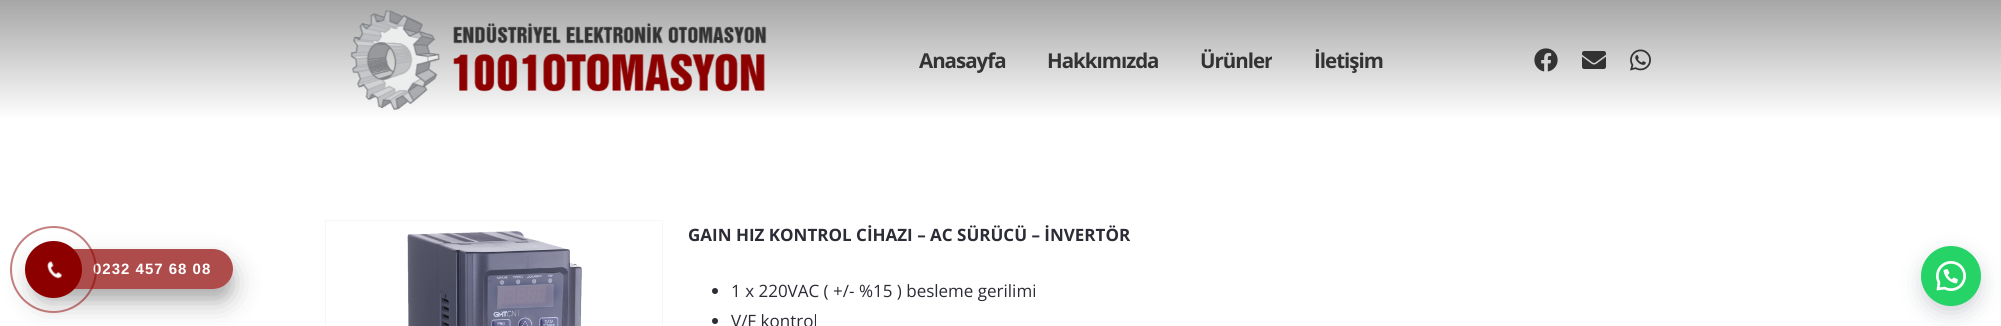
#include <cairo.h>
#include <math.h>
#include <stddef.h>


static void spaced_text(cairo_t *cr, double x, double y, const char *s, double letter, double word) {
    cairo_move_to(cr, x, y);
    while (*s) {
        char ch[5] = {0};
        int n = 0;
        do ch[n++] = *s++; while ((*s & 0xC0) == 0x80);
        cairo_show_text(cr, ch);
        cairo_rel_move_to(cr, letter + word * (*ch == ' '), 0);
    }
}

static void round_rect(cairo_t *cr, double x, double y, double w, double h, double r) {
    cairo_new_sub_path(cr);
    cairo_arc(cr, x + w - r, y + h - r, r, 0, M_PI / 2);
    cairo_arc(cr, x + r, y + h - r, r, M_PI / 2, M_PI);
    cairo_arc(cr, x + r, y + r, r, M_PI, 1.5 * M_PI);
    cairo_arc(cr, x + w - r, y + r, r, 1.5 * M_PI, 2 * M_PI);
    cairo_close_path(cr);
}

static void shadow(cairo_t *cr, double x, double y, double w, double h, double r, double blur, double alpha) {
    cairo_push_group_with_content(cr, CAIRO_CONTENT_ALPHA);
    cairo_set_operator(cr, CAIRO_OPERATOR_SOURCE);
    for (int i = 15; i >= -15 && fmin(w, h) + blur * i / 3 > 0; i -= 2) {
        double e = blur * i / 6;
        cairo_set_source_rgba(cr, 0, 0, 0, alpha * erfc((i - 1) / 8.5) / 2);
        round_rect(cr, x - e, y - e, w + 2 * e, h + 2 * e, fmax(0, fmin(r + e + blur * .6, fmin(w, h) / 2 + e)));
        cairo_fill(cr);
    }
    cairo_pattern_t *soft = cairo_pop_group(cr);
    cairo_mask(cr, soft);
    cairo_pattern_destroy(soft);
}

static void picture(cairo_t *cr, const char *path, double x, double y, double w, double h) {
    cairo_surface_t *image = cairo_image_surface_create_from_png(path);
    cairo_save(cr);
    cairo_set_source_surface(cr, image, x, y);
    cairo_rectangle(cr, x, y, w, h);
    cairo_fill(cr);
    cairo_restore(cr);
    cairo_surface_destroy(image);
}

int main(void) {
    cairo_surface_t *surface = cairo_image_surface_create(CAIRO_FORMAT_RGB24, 2001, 326);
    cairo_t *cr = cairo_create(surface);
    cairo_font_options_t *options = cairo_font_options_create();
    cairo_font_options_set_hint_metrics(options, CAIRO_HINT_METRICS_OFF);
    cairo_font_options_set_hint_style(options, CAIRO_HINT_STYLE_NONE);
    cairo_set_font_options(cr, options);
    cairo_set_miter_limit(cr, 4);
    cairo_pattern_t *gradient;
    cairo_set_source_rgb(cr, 1, 1, 1);
    cairo_paint(cr);
    cairo_save(cr);
    cairo_set_fill_rule(cr, CAIRO_FILL_RULE_EVEN_ODD);
    cairo_new_path(cr);
    cairo_move_to(cr, 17, 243);
    cairo_line_to(cr, 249, 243);
    cairo_line_to(cr, 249, 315);
    cairo_line_to(cr, 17, 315);
    cairo_close_path(cr);
    cairo_move_to(cr, 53, 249);
    cairo_line_to(cr, 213, 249);
    cairo_curve_to(cr, 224, 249, 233, 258, 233, 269);
    cairo_curve_to(cr, 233, 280, 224, 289, 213, 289);
    cairo_line_to(cr, 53, 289);
    cairo_curve_to(cr, 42, 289, 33, 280, 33, 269);
    cairo_curve_to(cr, 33, 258, 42, 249, 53, 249);
    cairo_close_path(cr);
    cairo_clip(cr);
    cairo_set_source_rgb(cr, 0, 0, 0);
    shadow(cr, 33, 259, 200, 40, 20, 5, 0.1);
    cairo_restore(cr);
    cairo_save(cr);
    cairo_set_fill_rule(cr, CAIRO_FILL_RULE_EVEN_ODD);
    cairo_new_path(cr);
    cairo_move_to(cr, 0, 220);
    cairo_line_to(cr, 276, 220);
    cairo_line_to(cr, 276, 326);
    cairo_line_to(cr, 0, 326);
    cairo_close_path(cr);
    cairo_move_to(cr, 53, 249);
    cairo_line_to(cr, 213, 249);
    cairo_curve_to(cr, 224, 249, 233, 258, 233, 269);
    cairo_curve_to(cr, 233, 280, 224, 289, 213, 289);
    cairo_line_to(cr, 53, 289);
    cairo_curve_to(cr, 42, 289, 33, 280, 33, 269);
    cairo_curve_to(cr, 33, 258, 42, 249, 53, 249);
    cairo_close_path(cr);
    cairo_clip(cr);
    cairo_set_source_rgb(cr, 0, 0, 0);
    shadow(cr, 33, 263, 200, 40, 20, 14, 0.25);
    cairo_restore(cr);
    cairo_set_source_rgba(cr, 0.549, 0, 0, 0.7);
    round_rect(cr, 33, 249, 200, 40, 20);
    cairo_fill(cr);
    cairo_select_font_face(cr, "Liberation Sans", CAIRO_FONT_SLANT_NORMAL, CAIRO_FONT_WEIGHT_BOLD);
    cairo_set_font_size(cr, 15);
    cairo_set_source_rgb(cr, 1, 1, 1);
    spaced_text(cr, 93, 274, "0232 457 68 08", 1, 0);
    cairo_new_path(cr);
    cairo_arc(cr, 53.5, 269.5, 42.5, 0, 2 * M_PI);
    cairo_set_source_rgba(cr, 0.549, 0, 0, 0.5);
    cairo_stroke(cr);
    cairo_set_source_rgb(cr, 0.549, 0, 0);
    cairo_arc(cr, 53.5, 269.5, 28.5, 0, 2 * M_PI);
    cairo_fill(cr);
    picture(cr, "img1.png", 47, 261, 16, 18);
    gradient = cairo_pattern_create_linear(1001, 120, 1001, 0);
    cairo_pattern_add_color_stop_rgba(gradient, 0, 1, 1, 1, 1);
    cairo_pattern_add_color_stop_rgba(gradient, 1, 0.651, 0.651, 0.651, 1);
    cairo_set_source(cr, gradient);
    cairo_pattern_destroy(gradient);
    cairo_rectangle(cr, 0, 0, 2001, 117);
    cairo_fill(cr);
    picture(cr, "img2.png", 350, 10, 417, 100);
    cairo_select_font_face(cr, "Open Sans", CAIRO_FONT_SLANT_NORMAL, CAIRO_FONT_WEIGHT_BOLD);
    cairo_set_font_size(cr, 20.5);
    cairo_set_source_rgb(cr, 0.2, 0.2, 0.2);
    spaced_text(cr, 919, 68, "Anasayfa", -1, 0);
    spaced_text(cr, 1047, 68, "Hakkımızda", -1, 0);
    cairo_save(cr);
    cairo_rectangle(cr, 1200, 35, 72, 50);
    cairo_clip(cr);
    spaced_text(cr, 1200, 68, "Ürünler", -1, 0);
    cairo_restore(cr);
    spaced_text(cr, 1314, 68, "İletişim", -1, 0);
    picture(cr, "img3.png", 1534, 48, 24, 24);
    picture(cr, "img4.png", 1582, 51, 24, 18);
    picture(cr, "img5.png", 1630, 49, 21, 22);
    cairo_rectangle(cr, 325.5, 220.5, 337, 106);
    cairo_set_source_rgb(cr, 0.961, 0.961, 0.961);
    cairo_set_line_width(cr, 1);
    cairo_stroke(cr);
    picture(cr, "img6.png", 407, 231, 175, 95);
    cairo_set_font_size(cr, 17);
    cairo_set_source_rgb(cr, 0.169, 0.173, 0.212);
    cairo_move_to(cr, 688, 241);
    cairo_show_text(cr, "GAIN HIZ KONTROL CİHAZI – AC SÜRÜCÜ – İNVERTÖR");
    cairo_new_path(cr);
    cairo_arc(cr, 715, 291, 3, 0, 2 * M_PI);
    cairo_fill(cr);
    cairo_select_font_face(cr, "Open Sans", CAIRO_FONT_SLANT_NORMAL, CAIRO_FONT_WEIGHT_NORMAL);
    cairo_move_to(cr, 731, 297);
    cairo_show_text(cr, "1 x 220VAC ( +/- %15 ) besleme gerilimi");
    cairo_new_path(cr);
    cairo_arc(cr, 715, 321, 3, 0, 2 * M_PI);
    cairo_fill(cr);
    cairo_move_to(cr, 731, 327);
    cairo_show_text(cr, "V/F kontrol");
    cairo_set_source_rgb(cr, 0.176, 0.243, 0.31);
    shadow(cr, 1926, 259, 50, 50, 25, 12.5, 0.3);
    cairo_set_source_rgb(cr, 0.145, 0.827, 0.4);
    cairo_arc(cr, 1951, 276, 30, 0, 2 * M_PI);
    cairo_fill(cr);
    picture(cr, "img7.png", 1936, 261, 30, 30);
    cairo_surface_write_to_png(surface, "page.png");
    cairo_font_options_destroy(options);
    cairo_destroy(cr);
    cairo_surface_destroy(surface);
    return 0;
}
